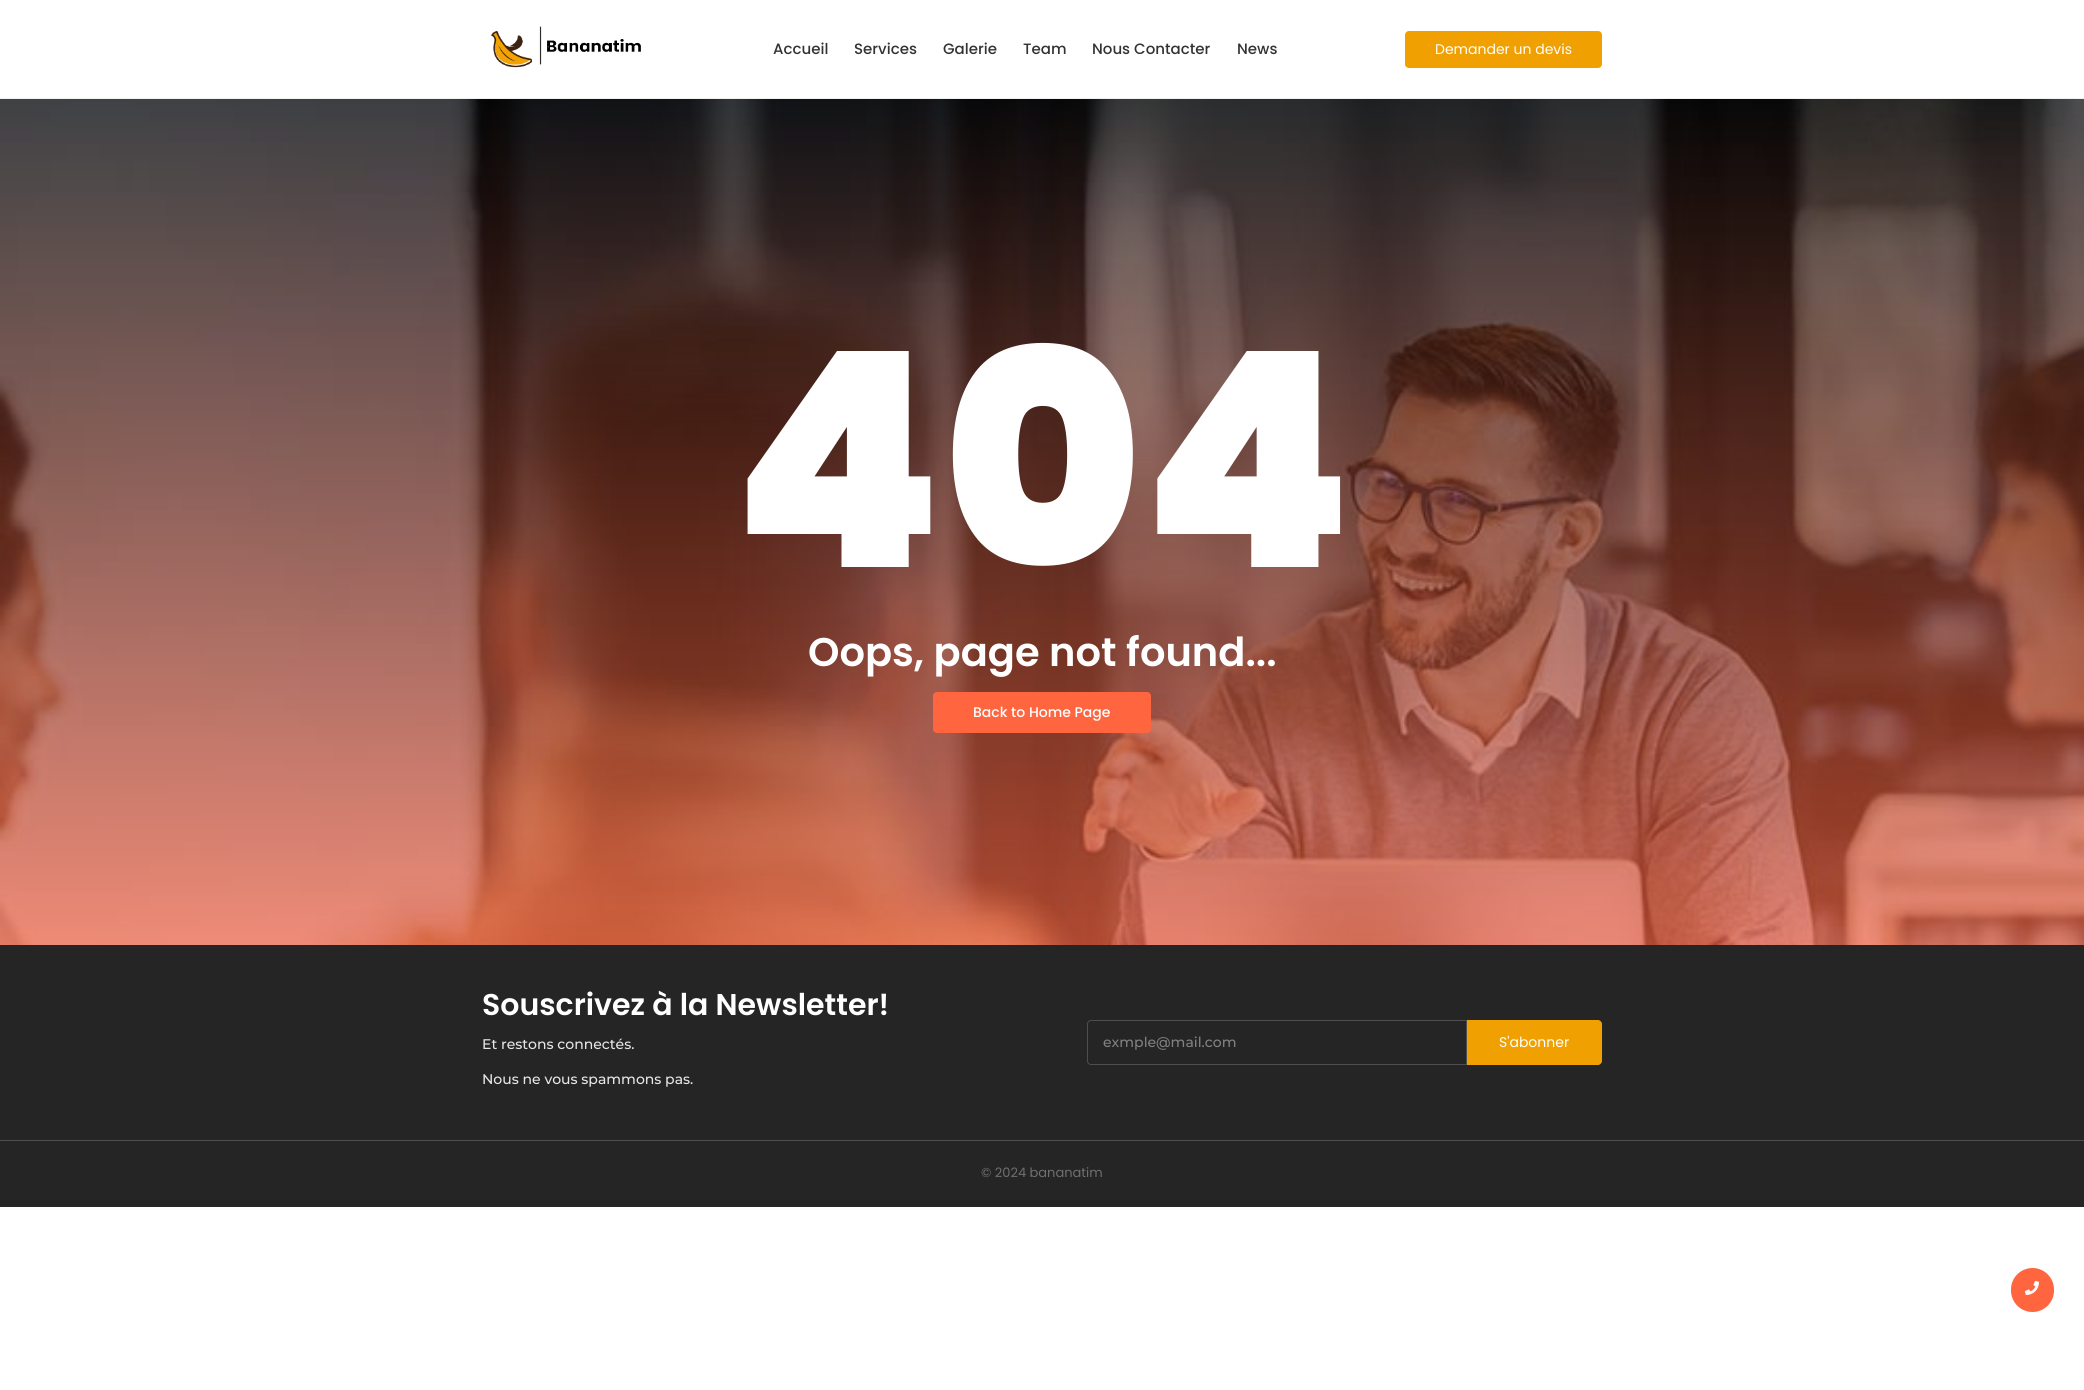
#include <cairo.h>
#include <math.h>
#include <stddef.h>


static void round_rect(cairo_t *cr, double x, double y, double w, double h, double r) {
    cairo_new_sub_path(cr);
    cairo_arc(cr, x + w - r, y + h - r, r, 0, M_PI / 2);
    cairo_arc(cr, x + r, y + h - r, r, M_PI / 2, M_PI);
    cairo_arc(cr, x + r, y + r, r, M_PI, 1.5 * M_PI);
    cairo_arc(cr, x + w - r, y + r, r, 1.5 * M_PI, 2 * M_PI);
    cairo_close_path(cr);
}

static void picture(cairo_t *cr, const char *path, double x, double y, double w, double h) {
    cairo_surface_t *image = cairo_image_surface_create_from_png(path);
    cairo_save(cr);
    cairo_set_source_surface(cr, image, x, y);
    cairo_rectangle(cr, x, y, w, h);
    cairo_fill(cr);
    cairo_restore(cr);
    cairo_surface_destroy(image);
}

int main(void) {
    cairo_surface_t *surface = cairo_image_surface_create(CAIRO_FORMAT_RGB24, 2084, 1390);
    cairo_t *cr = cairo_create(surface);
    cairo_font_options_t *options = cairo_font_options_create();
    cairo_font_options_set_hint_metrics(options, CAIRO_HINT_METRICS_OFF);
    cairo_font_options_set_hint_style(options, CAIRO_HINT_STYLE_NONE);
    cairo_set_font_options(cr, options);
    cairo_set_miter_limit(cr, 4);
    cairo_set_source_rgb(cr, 1, 1, 1);
    cairo_paint(cr);
    cairo_set_source_rgb(cr, 0.941, 0.941, 0.941);
    cairo_rectangle(cr, 0, 98, 2084, 1);
    cairo_fill(cr);
    picture(cr, "img1.png", 491, 26, 150, 42);
    cairo_select_font_face(cr, "Poppins Medium", CAIRO_FONT_SLANT_NORMAL, CAIRO_FONT_WEIGHT_NORMAL);
    cairo_set_font_size(cr, 15);
    cairo_set_source_rgb(cr, 0.2, 0.2, 0.2);
    cairo_move_to(cr, 773, 54);
    cairo_show_text(cr, "Accueil");
    cairo_move_to(cr, 854, 54);
    cairo_show_text(cr, "Services");
    cairo_move_to(cr, 943, 54);
    cairo_show_text(cr, "Galerie");
    cairo_move_to(cr, 1023, 54);
    cairo_show_text(cr, "Team");
    cairo_move_to(cr, 1092, 54);
    cairo_show_text(cr, "Nous Contacter");
    cairo_move_to(cr, 1237, 54);
    cairo_show_text(cr, "News");
    cairo_set_source_rgb(cr, 0.941, 0.627, 0.004);
    round_rect(cr, 1405, 31, 197, 37, 4);
    cairo_fill(cr);
    cairo_select_font_face(cr, "Poppins", CAIRO_FONT_SLANT_NORMAL, CAIRO_FONT_WEIGHT_NORMAL);
    cairo_set_font_size(cr, 14);
    cairo_set_source_rgb(cr, 1, 1, 1);
    cairo_move_to(cr, 1435, 54);
    cairo_show_text(cr, "Demander un devis");
    picture(cr, "img2.png", 0, 99, 2084, 846);
    cairo_select_font_face(cr, "Poppins Black", CAIRO_FONT_SLANT_NORMAL, CAIRO_FONT_WEIGHT_NORMAL);
    cairo_set_font_size(cr, 300);
    cairo_move_to(cr, 732, 567);
    cairo_show_text(cr, "404");
    cairo_select_font_face(cr, "Poppins SemiBold", CAIRO_FONT_SLANT_NORMAL, CAIRO_FONT_WEIGHT_NORMAL);
    cairo_set_font_size(cr, 40);
    cairo_move_to(cr, 808, 666);
    cairo_show_text(cr, "Oops, page not found...");
    cairo_set_source_rgb(cr, 1, 0.396, 0.243);
    round_rect(cr, 933, 692, 218, 41, 4);
    cairo_fill(cr);
    cairo_select_font_face(cr, "Poppins Medium", CAIRO_FONT_SLANT_NORMAL, CAIRO_FONT_WEIGHT_NORMAL);
    cairo_set_font_size(cr, 14);
    cairo_set_source_rgb(cr, 1, 1, 1);
    cairo_move_to(cr, 973, 717);
    cairo_show_text(cr, "Back to Home Page");
    cairo_set_source_rgb(cr, 0.145, 0.145, 0.145);
    cairo_rectangle(cr, 0, 945, 2084, 195);
    cairo_fill(cr);
    cairo_select_font_face(cr, "Poppins SemiBold", CAIRO_FONT_SLANT_NORMAL, CAIRO_FONT_WEIGHT_NORMAL);
    cairo_set_font_size(cr, 30);
    cairo_set_source_rgb(cr, 1, 1, 1);
    cairo_move_to(cr, 482, 1015);
    cairo_show_text(cr, "Souscrivez à la Newsletter!");
    cairo_select_font_face(cr, "Montserrat Medium", CAIRO_FONT_SLANT_NORMAL, CAIRO_FONT_WEIGHT_NORMAL);
    cairo_set_font_size(cr, 14);
    cairo_set_source_rgb(cr, 0.906, 0.906, 0.906);
    cairo_move_to(cr, 482, 1049);
    cairo_show_text(cr, "Et restons connectés.");
    cairo_move_to(cr, 482, 1084);
    cairo_show_text(cr, "Nous ne vous spammons pas.");
    cairo_new_path(cr);
    cairo_move_to(cr, 1091, 1020.5);
    cairo_line_to(cr, 1466.5, 1020.5);
    cairo_line_to(cr, 1466.5, 1064.5);
    cairo_line_to(cr, 1091, 1064.5);
    cairo_curve_to(cr, 1089, 1064.5, 1087.5, 1063, 1087.5, 1061);
    cairo_line_to(cr, 1087.5, 1024);
    cairo_curve_to(cr, 1087.5, 1022, 1089, 1020.5, 1091, 1020.5);
    cairo_close_path(cr);
    cairo_set_source_rgb(cr, 0.306, 0.306, 0.306);
    cairo_set_line_width(cr, 1);
    cairo_stroke(cr);
    cairo_set_source_rgb(cr, 0.506, 0.506, 0.506);
    cairo_move_to(cr, 1103, 1047);
    cairo_show_text(cr, "exmple@mail.com");
    cairo_set_source_rgb(cr, 0.941, 0.627, 0.004);
    cairo_new_path(cr);
    cairo_move_to(cr, 1467, 1020);
    cairo_line_to(cr, 1598, 1020);
    cairo_curve_to(cr, 1600, 1020, 1602, 1022, 1602, 1024);
    cairo_line_to(cr, 1602, 1061);
    cairo_curve_to(cr, 1602, 1063, 1600, 1065, 1598, 1065);
    cairo_line_to(cr, 1467, 1065);
    cairo_close_path(cr);
    cairo_fill(cr);
    cairo_select_font_face(cr, "Poppins", CAIRO_FONT_SLANT_NORMAL, CAIRO_FONT_WEIGHT_NORMAL);
    cairo_set_source_rgb(cr, 1, 1, 1);
    cairo_move_to(cr, 1499, 1047);
    cairo_show_text(cr, "S'abonner");
    cairo_set_source_rgb(cr, 0.145, 0.145, 0.145);
    cairo_rectangle(cr, 0, 1141, 2084, 66);
    cairo_fill(cr);
    cairo_set_source_rgb(cr, 0.306, 0.306, 0.306);
    cairo_rectangle(cr, 0, 1140, 2084, 1);
    cairo_fill(cr);
    cairo_set_font_size(cr, 13);
    cairo_set_source_rgb(cr, 0.435, 0.435, 0.435);
    cairo_move_to(cr, 981, 1177);
    cairo_show_text(cr, "© 2024 bananatim");
    cairo_set_source_rgb(cr, 1, 0.396, 0.243);
    round_rect(cr, 2011, 1268, 43, 44, 21.5);
    cairo_fill(cr);
    picture(cr, "img3.png", 2025, 1281, 14, 14);
    cairo_surface_write_to_png(surface, "page.png");
    cairo_font_options_destroy(options);
    cairo_destroy(cr);
    cairo_surface_destroy(surface);
    return 0;
}
